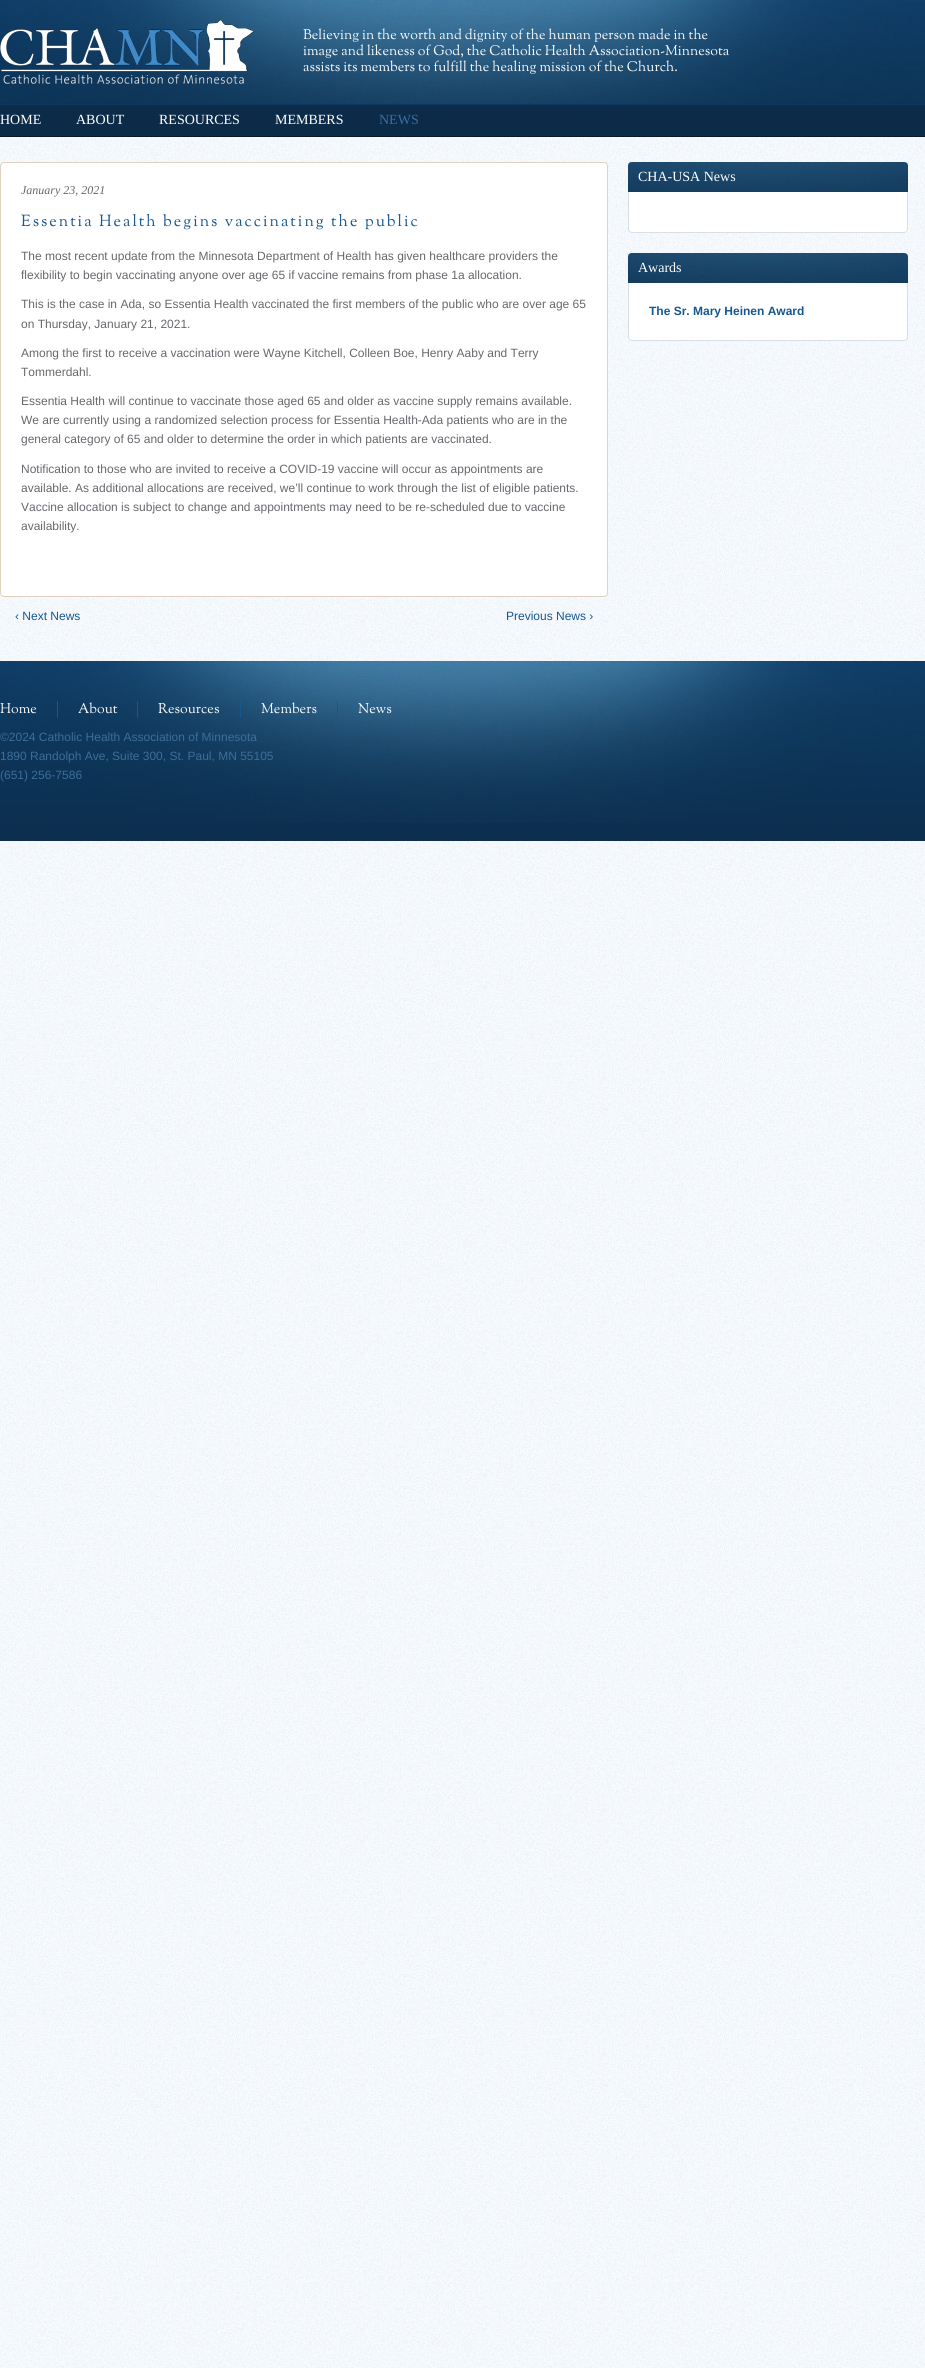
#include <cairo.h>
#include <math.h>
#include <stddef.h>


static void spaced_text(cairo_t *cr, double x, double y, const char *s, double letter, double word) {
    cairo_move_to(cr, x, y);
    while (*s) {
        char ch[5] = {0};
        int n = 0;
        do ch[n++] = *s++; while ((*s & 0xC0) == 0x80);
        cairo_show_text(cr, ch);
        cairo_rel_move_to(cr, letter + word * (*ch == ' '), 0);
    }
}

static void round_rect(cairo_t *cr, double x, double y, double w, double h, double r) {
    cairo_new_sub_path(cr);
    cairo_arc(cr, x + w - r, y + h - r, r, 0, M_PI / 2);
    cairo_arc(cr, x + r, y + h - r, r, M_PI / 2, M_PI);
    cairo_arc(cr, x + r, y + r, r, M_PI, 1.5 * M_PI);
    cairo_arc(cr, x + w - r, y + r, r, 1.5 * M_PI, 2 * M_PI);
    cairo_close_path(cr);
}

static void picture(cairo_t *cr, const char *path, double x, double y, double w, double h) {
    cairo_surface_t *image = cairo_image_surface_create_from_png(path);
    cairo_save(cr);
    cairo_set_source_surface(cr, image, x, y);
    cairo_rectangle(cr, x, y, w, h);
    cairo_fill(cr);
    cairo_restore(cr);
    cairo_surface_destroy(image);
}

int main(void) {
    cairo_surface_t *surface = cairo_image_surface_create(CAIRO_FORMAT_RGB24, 925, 2368);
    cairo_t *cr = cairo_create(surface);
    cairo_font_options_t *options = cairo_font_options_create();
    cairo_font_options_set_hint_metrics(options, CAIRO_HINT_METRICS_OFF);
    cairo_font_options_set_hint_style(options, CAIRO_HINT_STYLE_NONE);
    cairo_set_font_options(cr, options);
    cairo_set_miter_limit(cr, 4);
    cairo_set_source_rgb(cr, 1, 1, 1);
    cairo_paint(cr);
    picture(cr, "img1.png", 0, 841, 925, 1527);
    picture(cr, "img2.png", 0, 137, 925, 524);
    picture(cr, "img3.png", 0, 0, 925, 104);
    cairo_set_source_rgb(cr, 0.031, 0.102, 0.173);
    cairo_rectangle(cr, 0, 136, 925, 1);
    cairo_fill(cr);
    picture(cr, "img4.png", 0, 20, 253, 64);
    cairo_select_font_face(cr, "Sorts Mill Goudy Medium", CAIRO_FONT_SLANT_NORMAL, CAIRO_FONT_WEIGHT_NORMAL);
    cairo_set_font_size(cr, 14);
    cairo_set_source_rgb(cr, 0.965, 0.976, 0.988);
    cairo_move_to(cr, 303, 39);
    cairo_show_text(cr, "Believing in the worth and dignity of the human person made in the");
    cairo_move_to(cr, 303, 55);
    cairo_show_text(cr, "image and likeness of God, the Catholic Health Association-Minnesota");
    cairo_move_to(cr, 303, 71);
    cairo_show_text(cr, "assists its members to fulfill the healing mission of the Church.");
    cairo_set_source_rgb(cr, 0.047, 0.169, 0.282);
    cairo_rectangle(cr, 0, 105, 925, 31);
    cairo_fill(cr);
    cairo_set_source_rgb(cr, 0.055, 0.224, 0.373);
    cairo_rectangle(cr, 0, 104, 925, 1);
    cairo_fill(cr);
    cairo_select_font_face(cr, "Liberation Serif", CAIRO_FONT_SLANT_NORMAL, CAIRO_FONT_WEIGHT_NORMAL);
    cairo_set_source_rgb(cr, 1, 1, 1);
    cairo_move_to(cr, 0, 124);
    cairo_show_text(cr, "HOME");
    cairo_move_to(cr, 76, 124);
    cairo_show_text(cr, "ABOUT");
    cairo_move_to(cr, 159, 124);
    cairo_show_text(cr, "RESOURCES");
    cairo_move_to(cr, 275, 124);
    cairo_show_text(cr, "MEMBERS");
    cairo_set_source_rgb(cr, 0.224, 0.427, 0.624);
    cairo_move_to(cr, 379, 124);
    cairo_show_text(cr, "NEWS");
    cairo_set_source_rgb(cr, 1, 1, 1);
    round_rect(cr, 0.5, 162.5, 607, 434, 3.5);
    cairo_fill_preserve(cr);
    cairo_set_source_rgb(cr, 0.871, 0.827, 0.749);
    cairo_set_line_width(cr, 1);
    cairo_stroke(cr);
    cairo_select_font_face(cr, "Liberation Serif", CAIRO_FONT_SLANT_ITALIC, CAIRO_FONT_WEIGHT_NORMAL);
    cairo_set_font_size(cr, 12);
    cairo_set_source_rgb(cr, 0.4, 0.408, 0.427);
    cairo_move_to(cr, 21, 194);
    cairo_show_text(cr, "January 23, 2021");
    cairo_select_font_face(cr, "Sorts Mill Goudy Medium", CAIRO_FONT_SLANT_NORMAL, CAIRO_FONT_WEIGHT_NORMAL);
    cairo_set_font_size(cr, 16);
    cairo_set_source_rgb(cr, 0.086, 0.341, 0.561);
    spaced_text(cr, 21, 226, "Essentia Health begins vaccinating the public", 2, 0);
    cairo_select_font_face(cr, "Liberation Sans", CAIRO_FONT_SLANT_NORMAL, CAIRO_FONT_WEIGHT_NORMAL);
    cairo_set_font_size(cr, 12);
    cairo_set_source_rgb(cr, 0.4, 0.408, 0.427);
    cairo_move_to(cr, 21, 260);
    cairo_show_text(cr, "The most recent update from the Minnesota Department of Health has given healthcare providers the");
    cairo_move_to(cr, 21, 279);
    cairo_show_text(cr, "flexibility to begin vaccinating anyone over age 65 if vaccine remains from phase 1a allocation.");
    cairo_move_to(cr, 21, 308);
    cairo_show_text(cr, "This is the case in Ada, so Essentia Health vaccinated the first members of the public who are over age 65");
    cairo_move_to(cr, 21, 328);
    cairo_show_text(cr, "on Thursday, January 21, 2021.");
    cairo_move_to(cr, 21, 357);
    cairo_show_text(cr, "Among the first to receive a vaccination were Wayne Kitchell, Colleen Boe, Henry Aaby and Terry");
    cairo_move_to(cr, 21, 376);
    cairo_show_text(cr, "Tommerdahl.");
    cairo_move_to(cr, 21, 405);
    cairo_show_text(cr, "Essentia Health will continue to vaccinate those aged 65 and older as vaccine supply remains available.");
    cairo_move_to(cr, 21, 424);
    cairo_show_text(cr, "We are currently using a randomized selection process for Essentia Health-Ada patients who are in the");
    cairo_move_to(cr, 21, 443);
    cairo_show_text(cr, "general category of 65 and older to determine the order in which patients are vaccinated.");
    cairo_move_to(cr, 21, 473);
    cairo_show_text(cr, "Notification to those who are invited to receive a COVID-19 vaccine will occur as appointments are");
    cairo_move_to(cr, 21, 492);
    cairo_show_text(cr, "available. As additional allocations are received, we’ll continue to work through the list of eligible patients.");
    cairo_move_to(cr, 21, 511);
    cairo_show_text(cr, "Vaccine allocation is subject to change and appointments may need to be re-scheduled due to vaccine");
    cairo_move_to(cr, 21, 530);
    cairo_show_text(cr, "availability.");
    cairo_set_source_rgb(cr, 0.086, 0.341, 0.561);
    cairo_move_to(cr, 15, 620);
    cairo_show_text(cr, "‹ Next News");
    cairo_move_to(cr, 506, 620);
    cairo_show_text(cr, "Previous News ›");
    picture(cr, "img5.png", 628, 162, 280, 30);
    cairo_select_font_face(cr, "Liberation Serif", CAIRO_FONT_SLANT_NORMAL, CAIRO_FONT_WEIGHT_NORMAL);
    cairo_set_font_size(cr, 14);
    cairo_set_source_rgb(cr, 1, 1, 1);
    cairo_move_to(cr, 638, 181);
    cairo_show_text(cr, "CHA-USA News");
    cairo_new_path(cr);
    cairo_move_to(cr, 629, 192);
    cairo_line_to(cr, 907, 192);
    cairo_line_to(cr, 907, 229);
    cairo_curve_to(cr, 907, 230.5, 905.5, 232, 904, 232);
    cairo_line_to(cr, 632, 232);
    cairo_curve_to(cr, 630.5, 232, 629, 230.5, 629, 229);
    cairo_close_path(cr);
    cairo_fill(cr);
    cairo_set_source_rgb(cr, 0.847, 0.875, 0.902);
    cairo_set_fill_rule(cr, CAIRO_FILL_RULE_EVEN_ODD);
    cairo_new_path(cr);
    cairo_move_to(cr, 628, 192);
    cairo_line_to(cr, 908, 192);
    cairo_line_to(cr, 908, 229);
    cairo_curve_to(cr, 908, 231, 906, 233, 904, 233);
    cairo_line_to(cr, 632, 233);
    cairo_curve_to(cr, 630, 233, 628, 231, 628, 229);
    cairo_close_path(cr);
    cairo_move_to(cr, 629, 192);
    cairo_line_to(cr, 907, 192);
    cairo_line_to(cr, 907, 229);
    cairo_curve_to(cr, 907, 231, 906, 232, 904, 232);
    cairo_line_to(cr, 632, 232);
    cairo_curve_to(cr, 630, 232, 629, 231, 629, 229);
    cairo_close_path(cr);
    cairo_fill(cr);
    picture(cr, "img6.png", 628, 253, 280, 30);
    cairo_set_source_rgb(cr, 1, 1, 1);
    cairo_move_to(cr, 638, 272);
    cairo_show_text(cr, "Awards");
    cairo_new_path(cr);
    cairo_move_to(cr, 629, 283);
    cairo_line_to(cr, 907, 283);
    cairo_line_to(cr, 907, 337);
    cairo_curve_to(cr, 907, 338.5, 905.5, 340, 904, 340);
    cairo_line_to(cr, 632, 340);
    cairo_curve_to(cr, 630.5, 340, 629, 338.5, 629, 337);
    cairo_close_path(cr);
    cairo_fill(cr);
    cairo_set_source_rgb(cr, 0.847, 0.875, 0.902);
    cairo_new_path(cr);
    cairo_move_to(cr, 628, 283);
    cairo_line_to(cr, 908, 283);
    cairo_line_to(cr, 908, 337);
    cairo_curve_to(cr, 908, 339, 906, 341, 904, 341);
    cairo_line_to(cr, 632, 341);
    cairo_curve_to(cr, 630, 341, 628, 339, 628, 337);
    cairo_close_path(cr);
    cairo_move_to(cr, 629, 283);
    cairo_line_to(cr, 907, 283);
    cairo_line_to(cr, 907, 337);
    cairo_curve_to(cr, 907, 339, 906, 340, 904, 340);
    cairo_line_to(cr, 632, 340);
    cairo_curve_to(cr, 630, 340, 629, 339, 629, 337);
    cairo_close_path(cr);
    cairo_fill(cr);
    cairo_select_font_face(cr, "Liberation Sans", CAIRO_FONT_SLANT_NORMAL, CAIRO_FONT_WEIGHT_BOLD);
    cairo_set_font_size(cr, 12);
    cairo_set_source_rgb(cr, 0.086, 0.341, 0.561);
    cairo_move_to(cr, 649, 315);
    cairo_show_text(cr, "The Sr. Mary Heinen Award");
    cairo_set_source_rgb(cr, 0.047, 0.184, 0.31);
    cairo_rectangle(cr, 0, 823, 925, 18);
    cairo_fill(cr);
    picture(cr, "img7.png", 0, 661, 925, 162);
    cairo_set_source_rgb(cr, 0.086, 0.341, 0.561);
    cairo_rectangle(cr, 57, 701, 1, 17);
    cairo_fill(cr);
    cairo_select_font_face(cr, "Sorts Mill Goudy Medium", CAIRO_FONT_SLANT_NORMAL, CAIRO_FONT_WEIGHT_NORMAL);
    cairo_set_font_size(cr, 14);
    cairo_set_source_rgb(cr, 0.965, 0.976, 0.988);
    cairo_move_to(cr, 0, 713);
    cairo_show_text(cr, "Home");
    cairo_set_source_rgb(cr, 0.086, 0.341, 0.561);
    cairo_rectangle(cr, 137, 701, 1, 17);
    cairo_fill(cr);
    cairo_set_source_rgb(cr, 0.965, 0.976, 0.988);
    cairo_move_to(cr, 78, 713);
    cairo_show_text(cr, "About");
    cairo_set_source_rgb(cr, 0.086, 0.341, 0.561);
    cairo_rectangle(cr, 240, 701, 1, 17);
    cairo_fill(cr);
    cairo_set_source_rgb(cr, 0.965, 0.976, 0.988);
    cairo_move_to(cr, 158, 713);
    cairo_show_text(cr, "Resources");
    cairo_set_source_rgb(cr, 0.086, 0.341, 0.561);
    cairo_rectangle(cr, 337, 701, 1, 17);
    cairo_fill(cr);
    cairo_set_source_rgb(cr, 0.965, 0.976, 0.988);
    cairo_move_to(cr, 261, 713);
    cairo_show_text(cr, "Members");
    cairo_move_to(cr, 358, 713);
    cairo_show_text(cr, "News");
    cairo_select_font_face(cr, "Liberation Sans", CAIRO_FONT_SLANT_NORMAL, CAIRO_FONT_WEIGHT_NORMAL);
    cairo_set_font_size(cr, 12);
    cairo_set_source_rgb(cr, 0.235, 0.427, 0.6);
    cairo_move_to(cr, 0, 741);
    cairo_show_text(cr, "©2024 Catholic Health Association of Minnesota");
    cairo_move_to(cr, 0, 760);
    cairo_show_text(cr, "1890 Randolph Ave, Suite 300, St. Paul, MN 55105");
    cairo_move_to(cr, 0, 779);
    cairo_show_text(cr, "(651) 256-7586");
    cairo_surface_write_to_png(surface, "page.png");
    cairo_font_options_destroy(options);
    cairo_destroy(cr);
    cairo_surface_destroy(surface);
    return 0;
}
